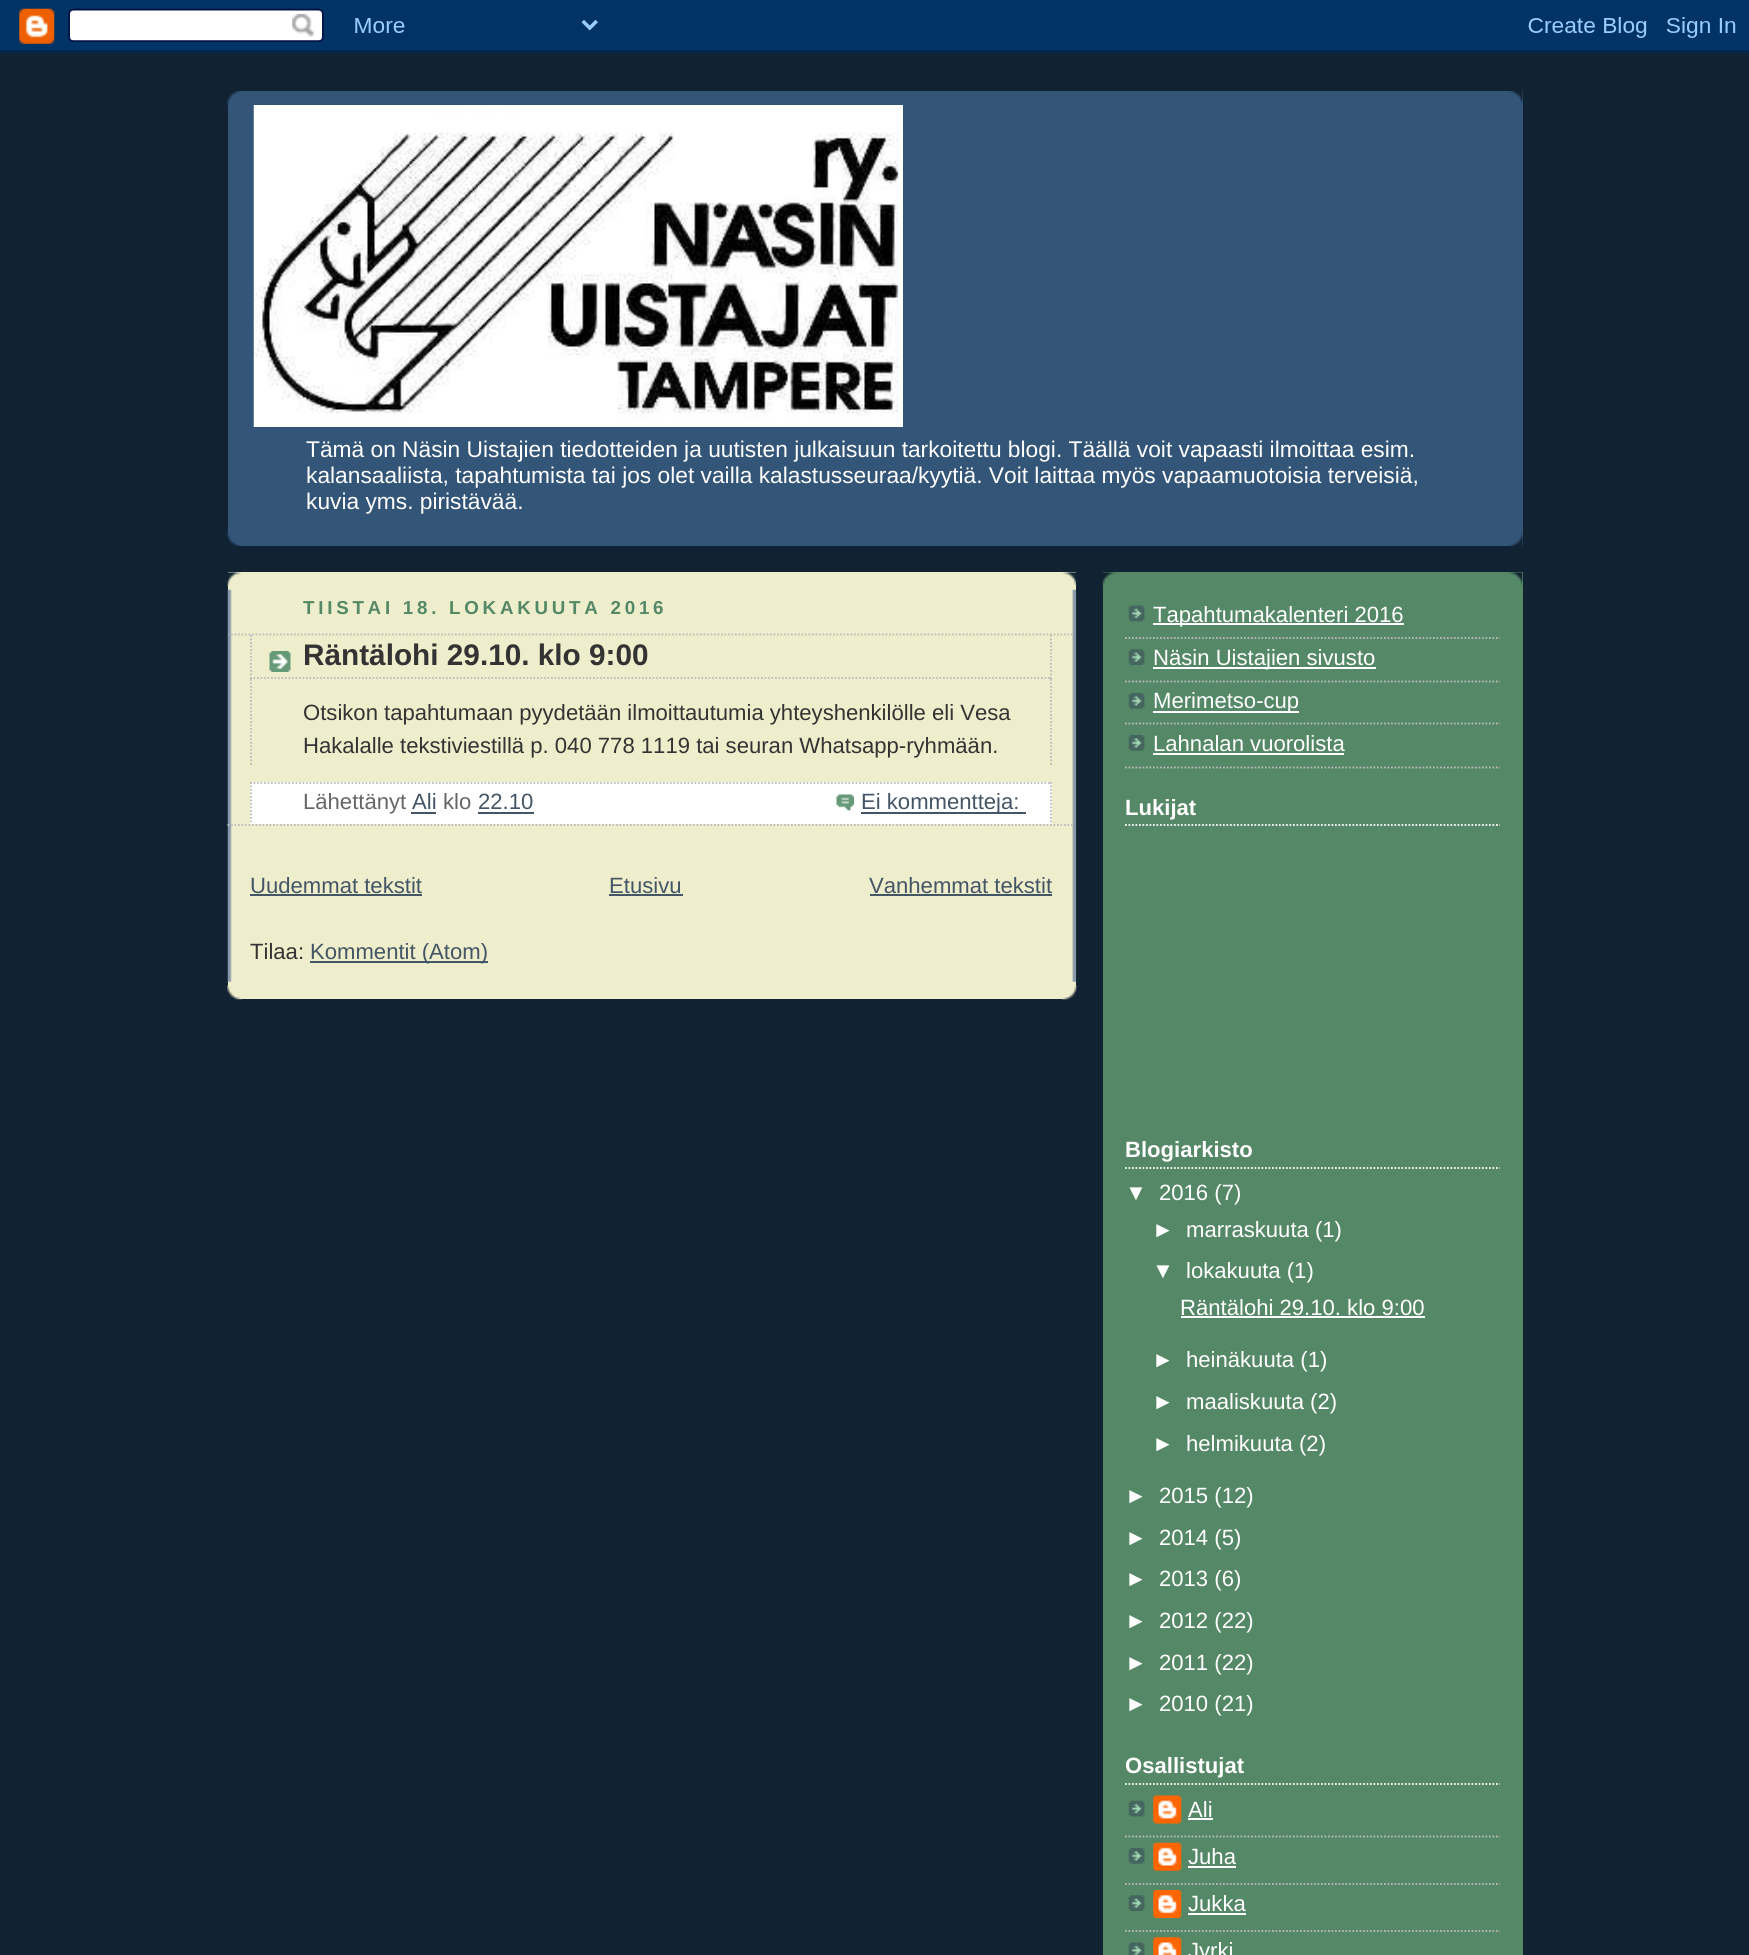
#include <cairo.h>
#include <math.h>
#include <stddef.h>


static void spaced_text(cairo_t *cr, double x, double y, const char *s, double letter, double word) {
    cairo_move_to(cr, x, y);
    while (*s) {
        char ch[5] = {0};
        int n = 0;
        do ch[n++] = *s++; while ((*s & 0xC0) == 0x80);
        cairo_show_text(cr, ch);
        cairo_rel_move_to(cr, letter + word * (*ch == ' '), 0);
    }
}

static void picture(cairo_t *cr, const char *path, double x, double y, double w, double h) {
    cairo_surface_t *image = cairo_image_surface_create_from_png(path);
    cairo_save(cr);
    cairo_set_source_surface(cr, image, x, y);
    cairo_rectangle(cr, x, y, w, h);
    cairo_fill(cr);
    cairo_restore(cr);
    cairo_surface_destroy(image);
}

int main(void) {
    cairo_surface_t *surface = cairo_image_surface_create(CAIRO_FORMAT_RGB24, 1749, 1955);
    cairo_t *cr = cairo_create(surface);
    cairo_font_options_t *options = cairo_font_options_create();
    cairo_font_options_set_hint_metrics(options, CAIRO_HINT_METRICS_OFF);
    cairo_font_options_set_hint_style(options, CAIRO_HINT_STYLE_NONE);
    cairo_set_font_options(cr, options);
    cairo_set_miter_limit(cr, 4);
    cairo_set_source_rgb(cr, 0.067, 0.133, 0.2);
    cairo_paint(cr);
    picture(cr, "img1.png", 0, 0, 1749, 53);
    cairo_set_source_rgb(cr, 0.2, 0.333, 0.467);
    cairo_rectangle(cr, 228, 91, 1295, 455);
    cairo_fill(cr);
    picture(cr, "img2.png", 227, 91, 1296, 14);
    picture(cr, "img3.png", 227, 532, 1296, 14);
    picture(cr, "img4.png", 253, 105, 650, 322);
    cairo_select_font_face(cr, "Liberation Sans", CAIRO_FONT_SLANT_NORMAL, CAIRO_FONT_WEIGHT_NORMAL);
    cairo_set_font_size(cr, 22.75);
    cairo_set_source_rgb(cr, 1, 1, 1);
    cairo_move_to(cr, 306, 457);
    cairo_show_text(cr, "Tämä on Näsin Uistajien tiedotteiden ja uutisten julkaisuun tarkoitettu blogi. Täällä voit vapaasti ilmoittaa esim.");
    cairo_move_to(cr, 306, 483);
    cairo_show_text(cr, "kalansaaliista, tapahtumista tai jos olet vailla kalastusseuraa/kyytiä. Voit laittaa myös vapaamuotoisia terveisiä,");
    cairo_move_to(cr, 306, 509);
    cairo_show_text(cr, "kuvia yms. piristävää.");
    cairo_set_source_rgb(cr, 0.933, 0.933, 0.8);
    cairo_rectangle(cr, 228, 572, 848, 427);
    cairo_fill(cr);
    picture(cr, "img5.png", 227, 984, 850, 16);
    picture(cr, "img6.png", 227, 572, 850, 15);
    picture(cr, "img7.png", 227, 589, 850, 393);
    cairo_select_font_face(cr, "Liberation Sans", CAIRO_FONT_SLANT_NORMAL, CAIRO_FONT_WEIGHT_BOLD);
    cairo_set_font_size(cr, 18.75);
    cairo_set_source_rgb(cr, 0.333, 0.533, 0.4);
    spaced_text(cr, 303, 614, "TIISTAI 18. LOKAKUUTA 2016", 3.75, 0);
    cairo_save(cr);
    cairo_rectangle(cr, 228, 572, 848, 427);
    cairo_clip(cr);
    cairo_new_path(cr);
    cairo_move_to(cr, 227.5, 634.5);
    cairo_line_to(cr, 1074.5, 634.5);
    cairo_set_source_rgb(cr, 0.733, 0.733, 0.733);
    cairo_set_line_width(cr, 1.8);
    cairo_set_dash(cr, (double[]){1.75, 1.75}, 2, 0);
    cairo_stroke(cr);
    cairo_restore(cr);
    cairo_new_path(cr);
    cairo_move_to(cr, 227.5, 825);
    cairo_line_to(cr, 1074.5, 825);
    cairo_set_source_rgb(cr, 0.733, 0.733, 0.733);
    cairo_set_line_width(cr, 1.8);
    cairo_set_dash(cr, (double[]){1.75, 1.75}, 2, 0);
    cairo_stroke(cr);
    picture(cr, "img8.png", 269, 651, 22, 21);
    cairo_new_path(cr);
    cairo_move_to(cr, 1051, 635);
    cairo_line_to(cr, 1051, 679);
    cairo_stroke(cr);
    cairo_new_path(cr);
    cairo_move_to(cr, 250, 678);
    cairo_line_to(cr, 1052, 678);
    cairo_stroke(cr);
    cairo_new_path(cr);
    cairo_move_to(cr, 251, 635);
    cairo_line_to(cr, 251, 679);
    cairo_stroke(cr);
    cairo_set_font_size(cr, 29.75);
    cairo_set_source_rgb(cr, 0.2, 0.2, 0.2);
    cairo_move_to(cr, 303, 665);
    cairo_show_text(cr, "Räntälohi 29.10. klo 9:00");
    cairo_new_path(cr);
    cairo_move_to(cr, 1051, 679);
    cairo_line_to(cr, 1051, 765);
    cairo_set_source_rgb(cr, 0.733, 0.733, 0.733);
    cairo_stroke(cr);
    cairo_new_path(cr);
    cairo_move_to(cr, 251, 679);
    cairo_line_to(cr, 251, 765);
    cairo_stroke(cr);
    cairo_select_font_face(cr, "Liberation Sans", CAIRO_FONT_SLANT_NORMAL, CAIRO_FONT_WEIGHT_NORMAL);
    cairo_set_font_size(cr, 22.1);
    cairo_set_source_rgb(cr, 0.2, 0.2, 0.2);
    cairo_move_to(cr, 303, 720);
    cairo_show_text(cr, "Otsikon tapahtumaan pyydetään ilmoittautumia yhteyshenkilölle eli Vesa");
    cairo_move_to(cr, 303, 753);
    cairo_show_text(cr, "Hakalalle tekstiviestillä p. 040 778 1119 tai seuran Whatsapp-ryhmään.");
    cairo_set_source_rgb(cr, 1, 1, 1);
    cairo_rectangle(cr, 250, 782, 802, 42);
    cairo_fill(cr);
    cairo_new_path(cr);
    cairo_move_to(cr, 250, 783);
    cairo_line_to(cr, 1052, 783);
    cairo_set_source_rgb(cr, 0.733, 0.733, 0.733);
    cairo_stroke(cr);
    cairo_new_path(cr);
    cairo_move_to(cr, 1051, 782);
    cairo_line_to(cr, 1051, 824);
    cairo_stroke(cr);
    cairo_new_path(cr);
    cairo_move_to(cr, 251, 782);
    cairo_line_to(cr, 251, 824);
    cairo_stroke(cr);
    cairo_set_source_rgb(cr, 0.4, 0.4, 0.4);
    cairo_move_to(cr, 303, 809);
    cairo_show_text(cr, "Lähettänyt");
    cairo_set_source_rgb(cr, 0.267, 0.333, 0.4);
    cairo_move_to(cr, 412, 809);
    cairo_show_text(cr, "Ali");
    cairo_rectangle(cr, 411, 812, 25, 2);
    cairo_fill(cr);
    cairo_set_source_rgb(cr, 0.4, 0.4, 0.4);
    cairo_move_to(cr, 443, 809);
    cairo_show_text(cr, "klo");
    cairo_set_source_rgb(cr, 0.267, 0.333, 0.4);
    cairo_move_to(cr, 478, 809);
    cairo_show_text(cr, "22.10");
    cairo_rectangle(cr, 478, 812, 56, 2);
    cairo_fill(cr);
    picture(cr, "img9.png", 836, 794, 18, 17);
    cairo_rectangle(cr, 861, 812, 165, 2);
    cairo_fill(cr);
    cairo_move_to(cr, 861, 809);
    cairo_show_text(cr, "Ei kommentteja:");
    cairo_move_to(cr, 250, 893);
    cairo_show_text(cr, "Uudemmat tekstit");
    cairo_rectangle(cr, 250, 894, 172, 2);
    cairo_fill(cr);
    cairo_move_to(cr, 609, 893);
    cairo_show_text(cr, "Etusivu");
    cairo_rectangle(cr, 609, 894, 74, 2);
    cairo_fill(cr);
    cairo_move_to(cr, 869, 893);
    cairo_show_text(cr, "Vanhemmat tekstit");
    cairo_rectangle(cr, 870, 894, 182, 2);
    cairo_fill(cr);
    cairo_set_source_rgb(cr, 0.2, 0.2, 0.2);
    cairo_move_to(cr, 250, 959);
    cairo_show_text(cr, "Tilaa:");
    cairo_set_source_rgb(cr, 0.267, 0.333, 0.4);
    cairo_rectangle(cr, 310, 961, 178, 2);
    cairo_fill(cr);
    cairo_move_to(cr, 310, 959);
    cairo_show_text(cr, "Kommentit (Atom)");
    cairo_set_source_rgb(cr, 0.333, 0.533, 0.4);
    cairo_rectangle(cr, 1103, 572, 420, 1383);
    cairo_fill(cr);
    picture(cr, "img10.png", 1102, 572, 421, 15);
    picture(cr, "img11.png", 1128, 605, 17, 17);
    cairo_new_path(cr);
    cairo_move_to(cr, 1125, 638);
    cairo_line_to(cr, 1500, 638);
    cairo_set_source_rgb(cr, 0.733, 0.733, 0.733);
    cairo_stroke(cr);
    cairo_set_source_rgb(cr, 1, 1, 1);
    cairo_rectangle(cr, 1153, 623, 251, 2);
    cairo_fill(cr);
    cairo_move_to(cr, 1153, 622);
    cairo_show_text(cr, "Tapahtumakalenteri 2016");
    picture(cr, "img12.png", 1128, 649, 17, 16);
    cairo_new_path(cr);
    cairo_move_to(cr, 1125, 681.5);
    cairo_line_to(cr, 1500, 681.5);
    cairo_set_source_rgb(cr, 0.733, 0.733, 0.733);
    cairo_stroke(cr);
    cairo_set_source_rgb(cr, 1, 1, 1);
    cairo_rectangle(cr, 1153, 667, 223, 2);
    cairo_fill(cr);
    cairo_move_to(cr, 1153, 665);
    cairo_show_text(cr, "Näsin Uistajien sivusto");
    picture(cr, "img13.png", 1128, 693, 17, 16);
    cairo_new_path(cr);
    cairo_move_to(cr, 1125, 723.5);
    cairo_line_to(cr, 1500, 723.5);
    cairo_set_source_rgb(cr, 0.733, 0.733, 0.733);
    cairo_stroke(cr);
    cairo_set_source_rgb(cr, 1, 1, 1);
    cairo_rectangle(cr, 1153, 711, 146, 2);
    cairo_fill(cr);
    cairo_move_to(cr, 1153, 708);
    cairo_show_text(cr, "Merimetso-cup");
    picture(cr, "img13.png", 1128, 735, 17, 16);
    cairo_new_path(cr);
    cairo_move_to(cr, 1125, 767.5);
    cairo_line_to(cr, 1500, 767.5);
    cairo_set_source_rgb(cr, 0.733, 0.733, 0.733);
    cairo_stroke(cr);
    cairo_set_source_rgb(cr, 1, 1, 1);
    cairo_move_to(cr, 1153, 751);
    cairo_show_text(cr, "Lahnalan vuorolista");
    cairo_rectangle(cr, 1153, 753, 191, 2);
    cairo_fill(cr);
    cairo_new_path(cr);
    cairo_move_to(cr, 1125, 825);
    cairo_line_to(cr, 1500, 825);
    cairo_stroke(cr);
    cairo_select_font_face(cr, "Liberation Sans", CAIRO_FONT_SLANT_NORMAL, CAIRO_FONT_WEIGHT_BOLD);
    cairo_move_to(cr, 1125, 815);
    cairo_show_text(cr, "Lukijat");
    cairo_new_path(cr);
    cairo_move_to(cr, 1125, 1168);
    cairo_line_to(cr, 1500, 1168);
    cairo_stroke(cr);
    cairo_move_to(cr, 1125, 1157);
    cairo_show_text(cr, "Blogiarkisto");
    cairo_select_font_face(cr, "Liberation Sans", CAIRO_FONT_SLANT_NORMAL, CAIRO_FONT_WEIGHT_NORMAL);
    cairo_move_to(cr, 1125, 1200);
    cairo_show_text(cr, "▼");
    cairo_move_to(cr, 1159, 1200);
    cairo_show_text(cr, "2016 (7)");
    cairo_move_to(cr, 1152, 1237);
    cairo_show_text(cr, "►");
    cairo_move_to(cr, 1186, 1237);
    cairo_show_text(cr, "marraskuuta (1)");
    cairo_move_to(cr, 1152, 1278);
    cairo_show_text(cr, "▼");
    cairo_move_to(cr, 1186, 1278);
    cairo_show_text(cr, "lokakuuta (1)");
    cairo_move_to(cr, 1180, 1315);
    cairo_show_text(cr, "Räntälohi 29.10. klo 9:00");
    cairo_rectangle(cr, 1181, 1316, 244, 2);
    cairo_fill(cr);
    cairo_move_to(cr, 1152, 1367);
    cairo_show_text(cr, "►");
    cairo_move_to(cr, 1186, 1367);
    cairo_show_text(cr, "heinäkuuta (1)");
    cairo_move_to(cr, 1152, 1409);
    cairo_show_text(cr, "►");
    cairo_move_to(cr, 1186, 1409);
    cairo_show_text(cr, "maaliskuuta (2)");
    cairo_move_to(cr, 1152, 1451);
    cairo_show_text(cr, "►");
    cairo_move_to(cr, 1186, 1451);
    cairo_show_text(cr, "helmikuuta (2)");
    cairo_move_to(cr, 1125, 1503);
    cairo_show_text(cr, "►");
    cairo_move_to(cr, 1159, 1503);
    cairo_show_text(cr, "2015 (12)");
    cairo_move_to(cr, 1125, 1545);
    cairo_show_text(cr, "►");
    cairo_move_to(cr, 1159, 1545);
    cairo_show_text(cr, "2014 (5)");
    cairo_move_to(cr, 1125, 1586);
    cairo_show_text(cr, "►");
    cairo_move_to(cr, 1159, 1586);
    cairo_show_text(cr, "2013 (6)");
    cairo_move_to(cr, 1125, 1628);
    cairo_show_text(cr, "►");
    cairo_move_to(cr, 1159, 1628);
    cairo_show_text(cr, "2012 (22)");
    cairo_move_to(cr, 1125, 1670);
    cairo_show_text(cr, "►");
    cairo_move_to(cr, 1159, 1670);
    cairo_show_text(cr, "2011 (22)");
    cairo_move_to(cr, 1125, 1711);
    cairo_show_text(cr, "►");
    cairo_move_to(cr, 1159, 1711);
    cairo_show_text(cr, "2010 (21)");
    cairo_new_path(cr);
    cairo_move_to(cr, 1125, 1784);
    cairo_line_to(cr, 1500, 1784);
    cairo_stroke(cr);
    cairo_select_font_face(cr, "Liberation Sans", CAIRO_FONT_SLANT_NORMAL, CAIRO_FONT_WEIGHT_BOLD);
    cairo_move_to(cr, 1125, 1773);
    cairo_show_text(cr, "Osallistujat");
    picture(cr, "img14.png", 1128, 1800, 17, 17);
    cairo_new_path(cr);
    cairo_move_to(cr, 1125, 1836.5);
    cairo_line_to(cr, 1500, 1836.5);
    cairo_set_source_rgb(cr, 0.733, 0.733, 0.733);
    cairo_stroke(cr);
    picture(cr, "img15.png", 1153, 1795, 29, 29);
    cairo_select_font_face(cr, "Liberation Sans", CAIRO_FONT_SLANT_NORMAL, CAIRO_FONT_WEIGHT_NORMAL);
    cairo_set_source_rgb(cr, 1, 1, 1);
    cairo_move_to(cr, 1188, 1817);
    cairo_show_text(cr, "Ali");
    cairo_rectangle(cr, 1188, 1818, 25, 2);
    cairo_fill(cr);
    picture(cr, "img13.png", 1128, 1848, 17, 16);
    cairo_new_path(cr);
    cairo_move_to(cr, 1125, 1884);
    cairo_line_to(cr, 1500, 1884);
    cairo_set_source_rgb(cr, 0.733, 0.733, 0.733);
    cairo_stroke(cr);
    picture(cr, "img16.png", 1153, 1842, 29, 29);
    cairo_set_source_rgb(cr, 1, 1, 1);
    cairo_move_to(cr, 1188, 1864);
    cairo_show_text(cr, "Juha");
    cairo_rectangle(cr, 1188, 1866, 48, 2);
    cairo_fill(cr);
    picture(cr, "img12.png", 1128, 1895, 17, 16);
    cairo_new_path(cr);
    cairo_move_to(cr, 1125, 1931);
    cairo_line_to(cr, 1500, 1931);
    cairo_set_source_rgb(cr, 0.733, 0.733, 0.733);
    cairo_stroke(cr);
    picture(cr, "img17.png", 1153, 1890, 29, 28);
    cairo_set_source_rgb(cr, 1, 1, 1);
    cairo_move_to(cr, 1188, 1911);
    cairo_show_text(cr, "Jukka");
    cairo_rectangle(cr, 1188, 1913, 58, 2);
    cairo_fill(cr);
    picture(cr, "img18.png", 1128, 1942, 17, 13);
    picture(cr, "img19.png", 1153, 1937, 29, 18);
    cairo_move_to(cr, 1188, 1958);
    cairo_show_text(cr, "Jyrki");
    cairo_surface_write_to_png(surface, "page.png");
    cairo_font_options_destroy(options);
    cairo_destroy(cr);
    cairo_surface_destroy(surface);
    return 0;
}
